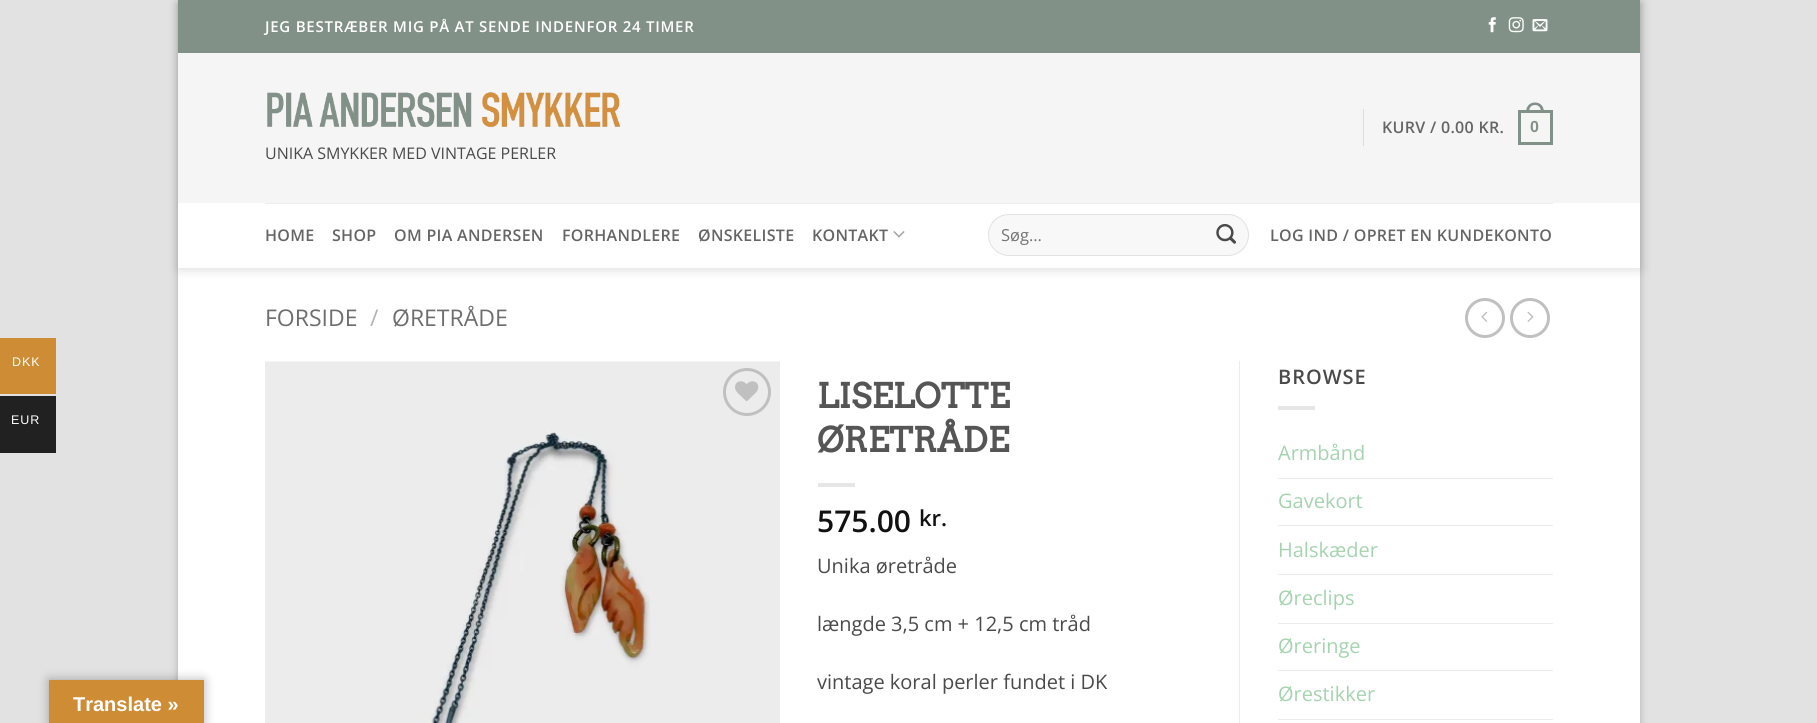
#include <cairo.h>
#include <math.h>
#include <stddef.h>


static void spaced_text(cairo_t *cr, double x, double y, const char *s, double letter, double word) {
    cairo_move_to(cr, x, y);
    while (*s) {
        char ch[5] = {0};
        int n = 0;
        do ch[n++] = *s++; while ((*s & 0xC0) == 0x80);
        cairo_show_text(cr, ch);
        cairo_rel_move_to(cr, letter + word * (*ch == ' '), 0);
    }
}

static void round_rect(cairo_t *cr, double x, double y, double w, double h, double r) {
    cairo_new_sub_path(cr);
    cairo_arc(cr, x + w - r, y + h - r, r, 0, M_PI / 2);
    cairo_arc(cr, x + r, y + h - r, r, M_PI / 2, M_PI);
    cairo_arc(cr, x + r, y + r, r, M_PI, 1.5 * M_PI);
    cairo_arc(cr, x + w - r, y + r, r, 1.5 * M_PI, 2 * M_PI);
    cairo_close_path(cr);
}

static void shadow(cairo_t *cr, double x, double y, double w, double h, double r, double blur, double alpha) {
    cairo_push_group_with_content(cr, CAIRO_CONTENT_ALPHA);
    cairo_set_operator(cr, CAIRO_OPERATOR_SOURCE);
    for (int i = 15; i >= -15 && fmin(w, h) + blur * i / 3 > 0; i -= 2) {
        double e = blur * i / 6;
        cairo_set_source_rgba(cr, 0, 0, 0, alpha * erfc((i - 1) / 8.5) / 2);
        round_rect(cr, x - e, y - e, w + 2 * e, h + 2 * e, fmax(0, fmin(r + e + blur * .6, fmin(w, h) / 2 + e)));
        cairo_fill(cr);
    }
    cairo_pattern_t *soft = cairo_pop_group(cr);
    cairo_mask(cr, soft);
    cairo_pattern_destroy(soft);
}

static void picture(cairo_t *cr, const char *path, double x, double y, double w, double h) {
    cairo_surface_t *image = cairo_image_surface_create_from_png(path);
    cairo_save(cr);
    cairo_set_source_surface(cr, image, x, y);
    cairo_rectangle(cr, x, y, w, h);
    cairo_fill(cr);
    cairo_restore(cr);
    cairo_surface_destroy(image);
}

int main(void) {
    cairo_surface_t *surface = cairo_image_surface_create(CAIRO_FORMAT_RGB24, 1817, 723);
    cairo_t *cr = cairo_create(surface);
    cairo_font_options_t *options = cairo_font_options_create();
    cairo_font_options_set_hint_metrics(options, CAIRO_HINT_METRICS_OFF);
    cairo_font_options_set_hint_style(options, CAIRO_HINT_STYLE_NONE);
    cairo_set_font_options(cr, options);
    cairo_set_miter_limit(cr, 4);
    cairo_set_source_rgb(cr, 0.886, 0.886, 0.886);
    cairo_paint(cr);
    cairo_set_source_rgb(cr, 0, 0, 0);
    shadow(cr, 178, 4, 1462, 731, 0, 4, 0.23);
    cairo_set_source_rgb(cr, 0.808, 0.549, 0.208);
    cairo_rectangle(cr, 0, 338, 56, 56);
    cairo_fill(cr);
    cairo_select_font_face(cr, "Liberation Sans", CAIRO_FONT_SLANT_NORMAL, CAIRO_FONT_WEIGHT_NORMAL);
    cairo_set_font_size(cr, 12.5);
    cairo_set_source_rgb(cr, 1, 1, 1);
    spaced_text(cr, 12, 366, "DKK", 1, 0);
    cairo_set_source_rgb(cr, 0.129, 0.129, 0.129);
    cairo_rectangle(cr, 0, 396, 56, 57);
    cairo_fill(cr);
    cairo_set_source_rgb(cr, 1, 1, 1);
    spaced_text(cr, 11, 424, "EUR", 1, 0);
    cairo_rectangle(cr, 178, 53, 1462, 670);
    cairo_fill(cr);
    cairo_save(cr);
    cairo_set_fill_rule(cr, CAIRO_FILL_RULE_EVEN_ODD);
    cairo_new_path(cr);
    cairo_move_to(cr, 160, 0);
    cairo_line_to(cr, 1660, 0);
    cairo_line_to(cr, 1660, 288);
    cairo_line_to(cr, 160, 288);
    cairo_close_path(cr);
    cairo_move_to(cr, 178, 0);
    cairo_line_to(cr, 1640, 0);
    cairo_line_to(cr, 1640, 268);
    cairo_line_to(cr, 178, 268);
    cairo_close_path(cr);
    cairo_clip(cr);
    cairo_set_source_rgb(cr, 0, 0, 0);
    shadow(cr, 179, 1, 1462, 268, 0, 6, 0.15);
    cairo_restore(cr);
    cairo_set_source_rgb(cr, 0.51, 0.569, 0.529);
    cairo_rectangle(cr, 178, 0, 1462, 53);
    cairo_fill(cr);
    cairo_select_font_face(cr, "Open Sans SemiBold", CAIRO_FONT_SLANT_NORMAL, CAIRO_FONT_WEIGHT_NORMAL);
    cairo_set_font_size(cr, 15);
    cairo_set_source_rgb(cr, 1, 1, 1);
    spaced_text(cr, 265, 32, "JEG BESTRÆBER MIG PÅ AT SENDE INDENFOR 24 TIMER", 0.75, 0);
    picture(cr, "img1.png", 1488, 17, 8, 16);
    picture(cr, "img2.png", 1508, 17, 16, 16);
    picture(cr, "img3.png", 1532, 19, 16, 13);
    cairo_set_source_rgba(cr, 0.957, 0.957, 0.957, 0.9);
    cairo_rectangle(cr, 178, 53, 1462, 150);
    cairo_fill(cr);
    cairo_set_source_rgb(cr, 0.867, 0.867, 0.867);
    cairo_rectangle(cr, 1363, 109, 1, 37);
    cairo_fill(cr);
    cairo_set_font_size(cr, 16);
    cairo_set_source_rgb(cr, 0.396, 0.396, 0.396);
    spaced_text(cr, 1382, 133, "KURV / 0.00 KR.", 0.3, 0);
    cairo_rectangle(cr, 1519.5, 111.5, 32, 32);
    cairo_set_source_rgb(cr, 0.51, 0.569, 0.529);
    cairo_set_line_width(cr, 3);
    cairo_stroke(cr);
    cairo_set_fill_rule(cr, CAIRO_FILL_RULE_EVEN_ODD);
    cairo_new_path(cr);
    cairo_move_to(cr, 1535, 102.5);
    cairo_curve_to(cr, 1541, 102.5, 1544, 107, 1544, 112.5);
    cairo_line_to(cr, 1526, 112.5);
    cairo_curve_to(cr, 1526, 107, 1529, 102.5, 1535, 102.5);
    cairo_close_path(cr);
    cairo_move_to(cr, 1535, 105);
    cairo_curve_to(cr, 1539.5, 105, 1541, 108.5, 1541, 112.5);
    cairo_line_to(cr, 1529, 112.5);
    cairo_curve_to(cr, 1529, 108.5, 1530.5, 105, 1535, 105);
    cairo_close_path(cr);
    cairo_fill(cr);
    cairo_select_font_face(cr, "Liberation Sans", CAIRO_FONT_SLANT_NORMAL, CAIRO_FONT_WEIGHT_BOLD);
    spaced_text(cr, 1530, 132, "0", 0.3, 0);
    picture(cr, "img4.png", 267, 92, 354, 36);
    cairo_select_font_face(cr, "Open Sans", CAIRO_FONT_SLANT_NORMAL, CAIRO_FONT_WEIGHT_NORMAL);
    cairo_set_source_rgb(cr, 0.29, 0.29, 0.29);
    cairo_move_to(cr, 265, 159);
    cairo_show_text(cr, "UNIKA SMYKKER MED VINTAGE PERLER");
    cairo_set_source_rgb(cr, 0.929, 0.929, 0.929);
    cairo_rectangle(cr, 265, 203, 1288, 1);
    cairo_fill(cr);
    cairo_set_source_rgb(cr, 1, 1, 1);
    cairo_rectangle(cr, 178, 267, 1462, 1);
    cairo_fill(cr);
    cairo_select_font_face(cr, "Open Sans SemiBold", CAIRO_FONT_SLANT_NORMAL, CAIRO_FONT_WEIGHT_NORMAL);
    cairo_set_source_rgb(cr, 0.396, 0.396, 0.396);
    spaced_text(cr, 265, 241, "HOME", 0.3, 0);
    spaced_text(cr, 332, 241, "SHOP", 0.3, 0);
    spaced_text(cr, 394, 241, "OM PIA ANDERSEN", 0.3, 0);
    spaced_text(cr, 562, 241, "FORHANDLERE", 0.3, 0);
    spaced_text(cr, 698, 241, "ØNSKELISTE", 0.3, 0);
    spaced_text(cr, 812, 241, "KONTAKT", 0.3, 0);
    picture(cr, "img5.png", 893, 231, 12, 7);
    cairo_set_source_rgb(cr, 0.969, 0.969, 0.969);
    round_rect(cr, 988, 214, 261, 42, 21);
    cairo_fill(cr);
    round_rect(cr, 988.5, 214.5, 260, 41, 20.5);
    cairo_set_source_rgba(cr, 0, 0, 0, 0.09);
    cairo_set_line_width(cr, 1);
    cairo_stroke(cr);
    cairo_select_font_face(cr, "Open Sans", CAIRO_FONT_SLANT_NORMAL, CAIRO_FONT_WEIGHT_NORMAL);
    cairo_set_font_size(cr, 16.5);
    cairo_set_source_rgb(cr, 0.459, 0.459, 0.459);
    cairo_move_to(cr, 1001, 241);
    cairo_show_text(cr, "Søg…");
    picture(cr, "img6.png", 1216, 224, 20, 20);
    cairo_select_font_face(cr, "Open Sans SemiBold", CAIRO_FONT_SLANT_NORMAL, CAIRO_FONT_WEIGHT_NORMAL);
    cairo_set_font_size(cr, 16);
    cairo_set_source_rgb(cr, 0.396, 0.396, 0.396);
    spaced_text(cr, 1270, 241, "LOG IND / OPRET EN KUNDEKONTO", 0.3, 0);
    cairo_select_font_face(cr, "Open Sans", CAIRO_FONT_SLANT_NORMAL, CAIRO_FONT_WEIGHT_NORMAL);
    cairo_set_font_size(cr, 23);
    cairo_set_source_rgb(cr, 0.431, 0.431, 0.431);
    cairo_move_to(cr, 265, 326);
    cairo_show_text(cr, "FORSIDE");
    cairo_set_source_rgb(cr, 0.698, 0.698, 0.698);
    cairo_move_to(cr, 370, 326);
    cairo_show_text(cr, "/");
    cairo_set_source_rgb(cr, 0.431, 0.431, 0.431);
    cairo_move_to(cr, 392, 326);
    cairo_show_text(cr, "ØRETRÅDE");
    cairo_new_path(cr);
    cairo_arc(cr, 1485, 318, 18.5, 0, 2 * M_PI);
    cairo_set_source_rgb(cr, 0.753, 0.753, 0.753);
    cairo_set_line_width(cr, 3);
    cairo_stroke(cr);
    picture(cr, "img7.png", 1481, 311, 7, 11);
    cairo_arc(cr, 1530, 318, 18.5, 0, 2 * M_PI);
    cairo_stroke(cr);
    picture(cr, "img8.png", 1527, 311, 7, 11);
    picture(cr, "img9.png", 265, 361, 515, 362);
    cairo_arc(cr, 747, 392, 22.5, 0, 2 * M_PI);
    cairo_stroke(cr);
    picture(cr, "img10.png", 735, 381, 24, 21);
    cairo_set_source_rgb(cr, 0.925, 0.925, 0.925);
    cairo_rectangle(cr, 1239, 361, 1, 362);
    cairo_fill(cr);
    cairo_select_font_face(cr, "Arvo", CAIRO_FONT_SLANT_NORMAL, CAIRO_FONT_WEIGHT_BOLD);
    cairo_set_font_size(cr, 34);
    cairo_set_source_rgb(cr, 0.333, 0.333, 0.333);
    cairo_move_to(cr, 817, 408);
    cairo_show_text(cr, "LISELOTTE");
    cairo_move_to(cr, 817, 452);
    cairo_show_text(cr, "ØRETRÅDE");
    cairo_set_source_rgb(cr, 0.902, 0.902, 0.902);
    cairo_rectangle(cr, 818, 483, 37, 4);
    cairo_fill(cr);
    cairo_select_font_face(cr, "Open Sans SemiBold", CAIRO_FONT_SLANT_NORMAL, CAIRO_FONT_WEIGHT_NORMAL);
    cairo_set_font_size(cr, 30);
    cairo_set_source_rgb(cr, 0.067, 0.067, 0.067);
    cairo_move_to(cr, 817, 532);
    cairo_show_text(cr, "575.00");
    cairo_set_font_size(cr, 22);
    cairo_move_to(cr, 919, 526);
    cairo_show_text(cr, "kr.");
    cairo_select_font_face(cr, "Open Sans", CAIRO_FONT_SLANT_NORMAL, CAIRO_FONT_WEIGHT_NORMAL);
    cairo_set_font_size(cr, 20);
    cairo_set_source_rgb(cr, 0.29, 0.29, 0.29);
    cairo_move_to(cr, 817, 573);
    cairo_show_text(cr, "Unika øretråde");
    cairo_move_to(cr, 817, 631);
    cairo_show_text(cr, "længde 3,5 cm + 12,5 cm tråd");
    cairo_move_to(cr, 817, 689);
    cairo_show_text(cr, "vintage koral perler fundet i DK");
    cairo_select_font_face(cr, "Open Sans SemiBold", CAIRO_FONT_SLANT_NORMAL, CAIRO_FONT_WEIGHT_NORMAL);
    spaced_text(cr, 1278, 384, "BROWSE", 1, 0);
    cairo_set_source_rgb(cr, 0.902, 0.902, 0.902);
    cairo_rectangle(cr, 1278, 406, 37, 4);
    cairo_fill(cr);
    cairo_select_font_face(cr, "Open Sans", CAIRO_FONT_SLANT_NORMAL, CAIRO_FONT_WEIGHT_NORMAL);
    cairo_set_source_rgb(cr, 0.647, 0.827, 0.686);
    cairo_move_to(cr, 1278, 460);
    cairo_show_text(cr, "Armbånd");
    cairo_set_source_rgb(cr, 0.925, 0.925, 0.925);
    cairo_rectangle(cr, 1278, 478, 275, 1);
    cairo_fill(cr);
    cairo_set_source_rgb(cr, 0.647, 0.827, 0.686);
    cairo_move_to(cr, 1278, 508);
    cairo_show_text(cr, "Gavekort");
    cairo_set_source_rgb(cr, 0.925, 0.925, 0.925);
    cairo_rectangle(cr, 1278, 525, 275, 1);
    cairo_fill(cr);
    cairo_set_source_rgb(cr, 0.647, 0.827, 0.686);
    cairo_move_to(cr, 1278, 557);
    cairo_show_text(cr, "Halskæder");
    cairo_set_source_rgb(cr, 0.925, 0.925, 0.925);
    cairo_rectangle(cr, 1278, 574, 275, 1);
    cairo_fill(cr);
    cairo_set_source_rgb(cr, 0.647, 0.827, 0.686);
    cairo_move_to(cr, 1278, 605);
    cairo_show_text(cr, "Øreclips");
    cairo_set_source_rgb(cr, 0.925, 0.925, 0.925);
    cairo_rectangle(cr, 1278, 623, 275, 1);
    cairo_fill(cr);
    cairo_set_source_rgb(cr, 0.647, 0.827, 0.686);
    cairo_move_to(cr, 1278, 653);
    cairo_show_text(cr, "Øreringe");
    cairo_set_source_rgb(cr, 0.925, 0.925, 0.925);
    cairo_rectangle(cr, 1278, 670, 275, 1);
    cairo_fill(cr);
    cairo_set_source_rgb(cr, 0.647, 0.827, 0.686);
    cairo_move_to(cr, 1278, 701);
    cairo_show_text(cr, "Ørestikker");
    cairo_set_source_rgb(cr, 0.925, 0.925, 0.925);
    cairo_rectangle(cr, 1278, 719, 275, 1);
    cairo_fill(cr);
    cairo_set_source_rgb(cr, 0, 0, 0);
    shadow(cr, 49, 680, 155, 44, 0, 5.5, 0.3);
    cairo_set_source_rgb(cr, 0.808, 0.549, 0.208);
    cairo_rectangle(cr, 49, 680, 155, 43);
    cairo_fill(cr);
    cairo_select_font_face(cr, "Liberation Sans", CAIRO_FONT_SLANT_NORMAL, CAIRO_FONT_WEIGHT_BOLD);
    cairo_set_source_rgb(cr, 1, 1, 1);
    cairo_move_to(cr, 73, 711);
    cairo_show_text(cr, "Translate »");
    cairo_surface_write_to_png(surface, "page.png");
    cairo_font_options_destroy(options);
    cairo_destroy(cr);
    cairo_surface_destroy(surface);
    return 0;
}
